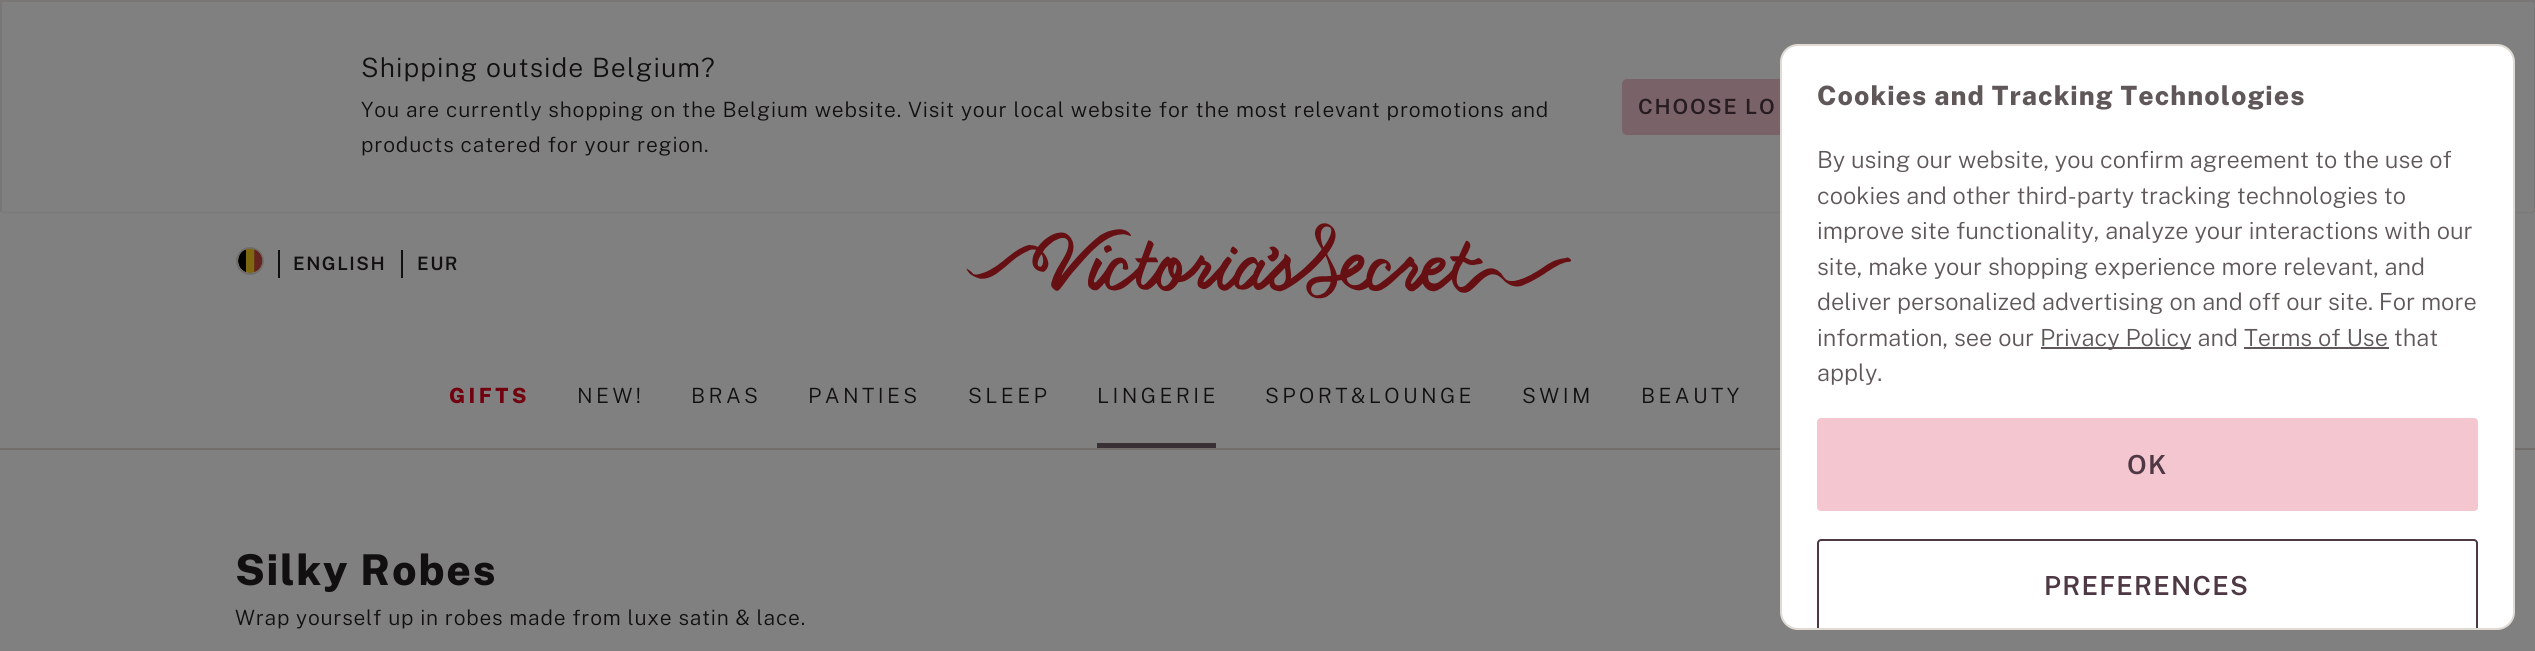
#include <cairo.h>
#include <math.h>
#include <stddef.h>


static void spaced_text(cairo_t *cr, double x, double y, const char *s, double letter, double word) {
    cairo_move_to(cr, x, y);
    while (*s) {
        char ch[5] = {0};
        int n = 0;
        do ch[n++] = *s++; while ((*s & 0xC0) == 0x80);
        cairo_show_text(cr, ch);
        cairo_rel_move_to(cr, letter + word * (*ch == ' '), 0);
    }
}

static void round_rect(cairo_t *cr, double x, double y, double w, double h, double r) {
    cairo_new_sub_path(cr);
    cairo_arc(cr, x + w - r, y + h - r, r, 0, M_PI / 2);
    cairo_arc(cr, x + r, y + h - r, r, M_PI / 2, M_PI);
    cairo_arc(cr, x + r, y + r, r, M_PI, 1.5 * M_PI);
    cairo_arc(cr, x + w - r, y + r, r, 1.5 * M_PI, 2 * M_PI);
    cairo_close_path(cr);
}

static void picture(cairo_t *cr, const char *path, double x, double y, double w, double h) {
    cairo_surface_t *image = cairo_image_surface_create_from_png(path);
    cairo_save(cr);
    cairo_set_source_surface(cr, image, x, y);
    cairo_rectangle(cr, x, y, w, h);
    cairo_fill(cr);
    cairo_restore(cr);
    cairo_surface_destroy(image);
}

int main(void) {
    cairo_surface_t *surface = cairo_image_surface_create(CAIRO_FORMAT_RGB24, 2535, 651);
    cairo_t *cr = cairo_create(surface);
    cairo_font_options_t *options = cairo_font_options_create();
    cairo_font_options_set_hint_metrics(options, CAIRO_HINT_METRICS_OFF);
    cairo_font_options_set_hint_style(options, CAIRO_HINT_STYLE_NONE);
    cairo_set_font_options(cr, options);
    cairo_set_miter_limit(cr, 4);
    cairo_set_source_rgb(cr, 0.502, 0.502, 0.502);
    cairo_paint(cr);
    cairo_set_source_rgb(cr, 0.49, 0.443, 0.455);
    cairo_rectangle(cr, 0, 0, 2535, 4);
    cairo_fill(cr);
    cairo_set_source_rgb(cr, 0.502, 0.502, 0.502);
    round_rect(cr, 0, 0, 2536, 214, 4);
    cairo_fill(cr);
    cairo_new_path(cr);
    cairo_move_to(cr, 2534, 212);
    cairo_line_to(cr, 2532, 212.5);
    cairo_line_to(cr, 3.5, 212.5);
    cairo_line_to(cr, 1.5, 212);
    cairo_set_source_rgb(cr, 0.482, 0.482, 0.482);
    cairo_set_line_width(cr, 1.8);
    cairo_stroke(cr);
    cairo_new_path(cr);
    cairo_move_to(cr, 1.5, 212);
    cairo_line_to(cr, 1, 210);
    cairo_line_to(cr, 1, 3.5);
    cairo_line_to(cr, 1.5, 1.5);
    cairo_line_to(cr, 3.5, 1);
    cairo_line_to(cr, 2532, 1);
    cairo_line_to(cr, 2534, 1.5);
    cairo_line_to(cr, 2535, 3.5);
    cairo_line_to(cr, 2535, 210);
    cairo_line_to(cr, 2534, 212);
    cairo_set_source_rgb(cr, 0.471, 0.463, 0.459);
    cairo_stroke(cr);
    cairo_select_font_face(cr, "Public Sans Light", CAIRO_FONT_SLANT_NORMAL, CAIRO_FONT_WEIGHT_NORMAL);
    cairo_set_font_size(cr, 26.6);
    cairo_set_source_rgb(cr, 0.067, 0.059, 0.059);
    spaced_text(cr, 361, 77, "Shipping outside Belgium?", 1.05, 0);
    cairo_set_font_size(cr, 21);
    spaced_text(cr, 361, 117, "You are currently shopping on the Belgium website. Visit your local website for the most relevant promotions and", 0.84, 0);
    spaced_text(cr, 361, 152, "products catered for your region.", 0.84, 0);
    cairo_set_source_rgb(cr, 0.478, 0.388, 0.408);
    round_rect(cr, 1623, 80, 261, 54, 4);
    cairo_fill_preserve(cr);
    cairo_set_line_width(cr, 2);
    cairo_stroke(cr);
    cairo_select_font_face(cr, "Public Sans SemiBold", CAIRO_FONT_SLANT_NORMAL, CAIRO_FONT_WEIGHT_NORMAL);
    cairo_set_source_rgb(cr, 0.153, 0.11, 0.133);
    spaced_text(cr, 1638, 114, "CHOOSE LO", 1.75, 0);
    cairo_set_source_rgb(cr, 0.439, 0.427, 0.42);
    cairo_rectangle(cr, 0, 448, 2535, 2);
    cairo_fill(cr);
    cairo_set_source_rgb(cr, 1, 1, 1);
    round_rect(cr, 1781, 45, 733, 584, 17);
    cairo_fill_preserve(cr);
    cairo_set_source_rgb(cr, 0.878, 0.855, 0.835);
    cairo_stroke(cr);
    cairo_select_font_face(cr, "Public Sans ExtraBold", CAIRO_FONT_SLANT_NORMAL, CAIRO_FONT_WEIGHT_NORMAL);
    cairo_set_font_size(cr, 26.6);
    cairo_set_source_rgb(cr, 0.376, 0.345, 0.345);
    spaced_text(cr, 1817, 105, "Cookies and Tracking Technologies", 1.05, 0);
    cairo_select_font_face(cr, "Public Sans Light", CAIRO_FONT_SLANT_NORMAL, CAIRO_FONT_WEIGHT_NORMAL);
    cairo_set_font_size(cr, 23.6);
    cairo_move_to(cr, 1817, 168);
    cairo_show_text(cr, "By using our website, you confirm agreement to the use of");
    cairo_move_to(cr, 1817, 204);
    cairo_show_text(cr, "cookies and other third-party tracking technologies to");
    cairo_move_to(cr, 1817, 239);
    cairo_show_text(cr, "improve site functionality, analyze your interactions with our");
    cairo_move_to(cr, 1817, 275);
    cairo_show_text(cr, "site, make your shopping experience more relevant, and");
    cairo_move_to(cr, 1817, 310);
    cairo_show_text(cr, "deliver personalized advertising on and off our site. For more");
    cairo_move_to(cr, 1817, 346);
    cairo_show_text(cr, "information, see our");
    cairo_rectangle(cr, 2041, 347, 150, 2);
    cairo_fill(cr);
    cairo_move_to(cr, 2040, 346);
    cairo_show_text(cr, "Privacy Policy and Terms of Use that");
    cairo_rectangle(cr, 2244, 347, 145, 2);
    cairo_fill(cr);
    cairo_move_to(cr, 1817, 381);
    cairo_show_text(cr, "apply.");
    cairo_set_source_rgb(cr, 0.957, 0.776, 0.812);
    round_rect(cr, 1818, 419, 659, 91, 3);
    cairo_fill_preserve(cr);
    cairo_stroke(cr);
    cairo_select_font_face(cr, "Public Sans SemiBold", CAIRO_FONT_SLANT_NORMAL, CAIRO_FONT_WEIGHT_NORMAL);
    cairo_set_font_size(cr, 26.25);
    cairo_set_source_rgb(cr, 0.306, 0.22, 0.267);
    spaced_text(cr, 2127, 474, "OK", 1.25, 0);
    cairo_new_path(cr);
    cairo_move_to(cr, 1821, 539);
    cairo_curve_to(cr, 1819, 539, 1817, 541, 1817, 543);
    cairo_line_to(cr, 1817, 628);
    cairo_line_to(cr, 1819, 628);
    cairo_line_to(cr, 1819, 543);
    cairo_curve_to(cr, 1819, 542, 1820, 541, 1821, 541);
    cairo_line_to(cr, 2474, 541);
    cairo_curve_to(cr, 2475, 541, 2476, 542, 2476, 543);
    cairo_line_to(cr, 2476, 628);
    cairo_line_to(cr, 2478, 628);
    cairo_line_to(cr, 2478, 543);
    cairo_curve_to(cr, 2478, 541, 2476, 539, 2474, 539);
    cairo_close_path(cr);
    cairo_fill(cr);
    spaced_text(cr, 2044, 595, "PREFERENCES", 1.25, 0);
    cairo_new_path(cr);
    cairo_arc(cr, 250, 261, 13, 0, 2 * M_PI);
    cairo_set_source_rgb(cr, 0.439, 0.427, 0.42);
    cairo_stroke(cr);
    picture(cr, "img1.png", 238, 248, 25, 25);
    cairo_set_source_rgb(cr, 0.067, 0.059, 0.059);
    cairo_rectangle(cr, 278, 250, 2, 28);
    cairo_fill(cr);
    cairo_set_font_size(cr, 18.5);
    spaced_text(cr, 293, 270, "ENGLISH", 1.5, 0);
    cairo_rectangle(cr, 401, 250, 2, 28);
    cairo_fill(cr);
    spaced_text(cr, 417, 270, "EUR", 1.5, 0);
    picture(cr, "img2.png", 966, 223, 605, 76);
    cairo_select_font_face(cr, "Public Sans ExtraBold", CAIRO_FONT_SLANT_NORMAL, CAIRO_FONT_WEIGHT_NORMAL);
    cairo_set_font_size(cr, 21);
    cairo_set_source_rgb(cr, 0.443, 0.004, 0.055);
    spaced_text(cr, 449, 403, "GIFTS", 3.4, 0);
    cairo_select_font_face(cr, "Public Sans Light", CAIRO_FONT_SLANT_NORMAL, CAIRO_FONT_WEIGHT_NORMAL);
    cairo_set_source_rgb(cr, 0.067, 0.059, 0.059);
    spaced_text(cr, 577, 403, "NEW!", 3.4, 0);
    spaced_text(cr, 691, 403, "BRAS", 3.4, 0);
    spaced_text(cr, 808, 403, "PANTIES", 3.4, 0);
    spaced_text(cr, 968, 403, "SLEEP", 3.4, 0);
    spaced_text(cr, 1097, 403, "LINGERIE", 3.4, 0);
    cairo_set_source_rgb(cr, 0.224, 0.188, 0.208);
    cairo_rectangle(cr, 1097, 443, 119, 5);
    cairo_fill(cr);
    cairo_set_source_rgb(cr, 0.067, 0.059, 0.059);
    spaced_text(cr, 1265, 403, "SPORT&LOUNGE", 3.4, 0);
    spaced_text(cr, 1522, 403, "SWIM", 3.4, 0);
    spaced_text(cr, 1641, 403, "BEAUTY", 3.4, 0);
    cairo_select_font_face(cr, "Public Sans ExtraBold", CAIRO_FONT_SLANT_NORMAL, CAIRO_FONT_WEIGHT_NORMAL);
    cairo_set_font_size(cr, 42.5);
    spaced_text(cr, 235, 585, "Silky Robes", 1.75, 0);
    cairo_select_font_face(cr, "Public Sans Light", CAIRO_FONT_SLANT_NORMAL, CAIRO_FONT_WEIGHT_NORMAL);
    cairo_set_font_size(cr, 21);
    spaced_text(cr, 235, 625, "Wrap yourself up in robes made from luxe satin & lace.", 0.77, 0);
    cairo_surface_write_to_png(surface, "page.png");
    cairo_font_options_destroy(options);
    cairo_destroy(cr);
    cairo_surface_destroy(surface);
    return 0;
}
